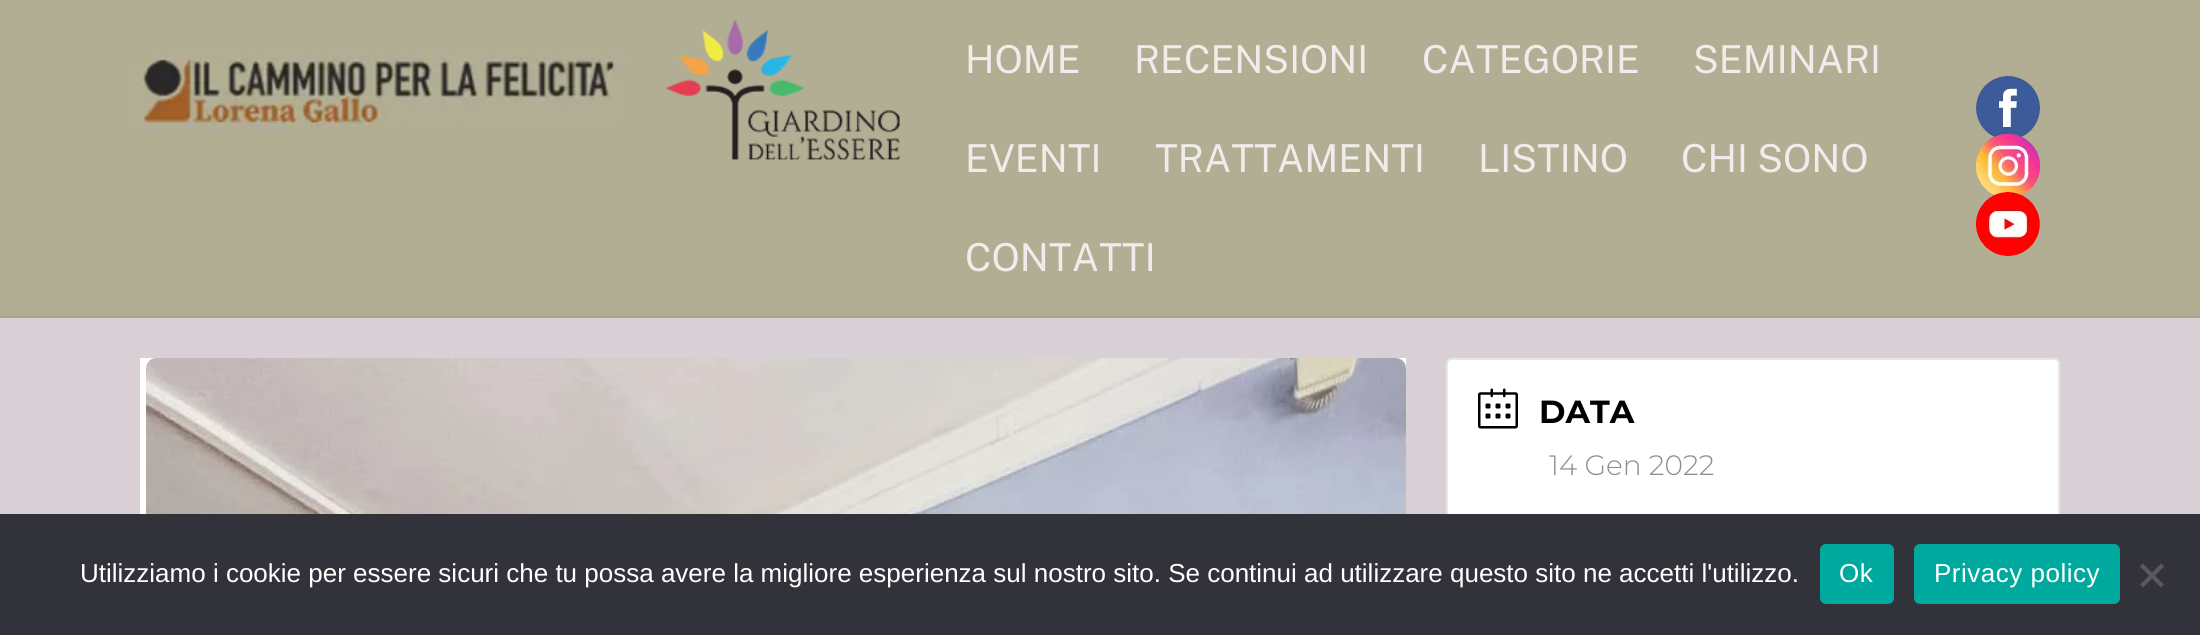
#include <cairo.h>
#include <math.h>
#include <stddef.h>


static void spaced_text(cairo_t *cr, double x, double y, const char *s, double letter, double word) {
    cairo_move_to(cr, x, y);
    while (*s) {
        char ch[5] = {0};
        int n = 0;
        do ch[n++] = *s++; while ((*s & 0xC0) == 0x80);
        cairo_show_text(cr, ch);
        cairo_rel_move_to(cr, letter + word * (*ch == ' '), 0);
    }
}

static void round_rect(cairo_t *cr, double x, double y, double w, double h, double r) {
    cairo_new_sub_path(cr);
    cairo_arc(cr, x + w - r, y + h - r, r, 0, M_PI / 2);
    cairo_arc(cr, x + r, y + h - r, r, M_PI / 2, M_PI);
    cairo_arc(cr, x + r, y + r, r, M_PI, 1.5 * M_PI);
    cairo_arc(cr, x + w - r, y + r, r, 1.5 * M_PI, 2 * M_PI);
    cairo_close_path(cr);
}

static void picture(cairo_t *cr, const char *path, double x, double y, double w, double h) {
    cairo_surface_t *image = cairo_image_surface_create_from_png(path);
    cairo_save(cr);
    cairo_set_source_surface(cr, image, x, y);
    cairo_rectangle(cr, x, y, w, h);
    cairo_fill(cr);
    cairo_restore(cr);
    cairo_surface_destroy(image);
}

int main(void) {
    cairo_surface_t *surface = cairo_image_surface_create(CAIRO_FORMAT_RGB24, 2200, 635);
    cairo_t *cr = cairo_create(surface);
    cairo_font_options_t *options = cairo_font_options_create();
    cairo_font_options_set_hint_metrics(options, CAIRO_HINT_METRICS_OFF);
    cairo_font_options_set_hint_style(options, CAIRO_HINT_STYLE_NONE);
    cairo_set_font_options(cr, options);
    cairo_set_miter_limit(cr, 4);
    cairo_set_source_rgb(cr, 0.851, 0.816, 0.839);
    cairo_paint(cr);
    cairo_set_source_rgb(cr, 0.698, 0.682, 0.576);
    cairo_rectangle(cr, 0, 0, 2200, 316);
    cairo_fill(cr);
    cairo_set_source_rgb(cr, 0.663, 0.647, 0.549);
    cairo_rectangle(cr, 0, 316, 2200, 2);
    cairo_fill(cr);
    picture(cr, "img1.png", 133, 20, 767, 140);
    cairo_select_font_face(cr, "Public Sans", CAIRO_FONT_SLANT_NORMAL, CAIRO_FONT_WEIGHT_NORMAL);
    cairo_set_font_size(cr, 38.5);
    cairo_set_source_rgb(cr, 0.937, 0.925, 0.918);
    cairo_move_to(cr, 965, 73);
    cairo_show_text(cr, "HOME");
    cairo_move_to(cr, 1134, 73);
    cairo_show_text(cr, "RECENSIONI");
    cairo_move_to(cr, 1422, 73);
    cairo_show_text(cr, "CATEGORIE");
    cairo_move_to(cr, 1693, 73);
    cairo_show_text(cr, "SEMINARI");
    cairo_move_to(cr, 965, 172);
    cairo_show_text(cr, "EVENTI");
    cairo_move_to(cr, 1155, 172);
    cairo_show_text(cr, "TRATTAMENTI");
    cairo_move_to(cr, 1478, 172);
    cairo_show_text(cr, "LISTINO");
    cairo_move_to(cr, 1681, 172);
    cairo_show_text(cr, "CHI SONO");
    cairo_move_to(cr, 965, 271);
    cairo_show_text(cr, "CONTATTI");
    picture(cr, "img2.png", 1976, 76, 64, 61);
    picture(cr, "img3.png", 1976, 134, 64, 62);
    picture(cr, "img4.png", 1976, 192, 64, 64);
    cairo_set_source_rgb(cr, 1, 1, 1);
    cairo_rectangle(cr, 140, 358, 1266, 156);
    cairo_fill(cr);
    picture(cr, "img5.png", 146, 358, 1260, 156);
    round_rect(cr, 1447, 359, 612, 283, 5);
    cairo_fill_preserve(cr);
    cairo_set_source_rgb(cr, 0.902, 0.906, 0.91);
    cairo_stroke(cr);
    picture(cr, "img6.png", 1478, 388, 40, 41);
    cairo_select_font_face(cr, "Montserrat", CAIRO_FONT_SLANT_NORMAL, CAIRO_FONT_WEIGHT_BOLD);
    cairo_set_font_size(cr, 32);
    cairo_set_source_rgb(cr, 0, 0, 0);
    cairo_move_to(cr, 1539, 423);
    cairo_show_text(cr, "DATA");
    cairo_select_font_face(cr, "Montserrat Light", CAIRO_FONT_SLANT_NORMAL, CAIRO_FONT_WEIGHT_NORMAL);
    cairo_set_font_size(cr, 28);
    cairo_set_source_rgb(cr, 0.553, 0.553, 0.553);
    cairo_move_to(cr, 1549, 475);
    cairo_show_text(cr, "14 Gen 2022");
    cairo_set_source_rgb(cr, 0.196, 0.196, 0.227);
    cairo_rectangle(cr, 0, 514, 2200, 121);
    cairo_fill(cr);
    cairo_select_font_face(cr, "Liberation Sans", CAIRO_FONT_SLANT_NORMAL, CAIRO_FONT_WEIGHT_NORMAL);
    cairo_set_font_size(cr, 26);
    cairo_set_source_rgb(cr, 1, 1, 1);
    cairo_move_to(cr, 80, 582);
    cairo_show_text(cr, "Utilizziamo i cookie per essere sicuri che tu possa avere la migliore esperienza sul nostro sito. Se continui ad utilizzare questo sito ne accetti l'utilizzo.");
    cairo_set_source_rgb(cr, 0, 0.663, 0.616);
    round_rect(cr, 1820, 544, 74, 60, 6);
    cairo_fill(cr);
    cairo_set_source_rgb(cr, 1, 1, 1);
    spaced_text(cr, 1839, 582, "Ok", 0.5, 0);
    cairo_set_source_rgb(cr, 0, 0.663, 0.616);
    round_rect(cr, 1914, 544, 206, 60, 6);
    cairo_fill(cr);
    cairo_set_source_rgb(cr, 1, 1, 1);
    spaced_text(cr, 1934, 582, "Privacy policy", 0.5, 0);
    cairo_set_source_rgb(cr, 0.349, 0.349, 0.365);
    cairo_new_path(cr);
    cairo_move_to(cr, 2161, 563.5);
    cairo_line_to(cr, 2164, 566.5);
    cairo_line_to(cr, 2143, 587.5);
    cairo_line_to(cr, 2140, 584.5);
    cairo_close_path(cr);
    cairo_fill(cr);
    cairo_new_path(cr);
    cairo_move_to(cr, 2140, 566.5);
    cairo_line_to(cr, 2143, 563.5);
    cairo_line_to(cr, 2164, 584.5);
    cairo_line_to(cr, 2161, 587.5);
    cairo_close_path(cr);
    cairo_fill(cr);
    cairo_surface_write_to_png(surface, "page.png");
    cairo_font_options_destroy(options);
    cairo_destroy(cr);
    cairo_surface_destroy(surface);
    return 0;
}
